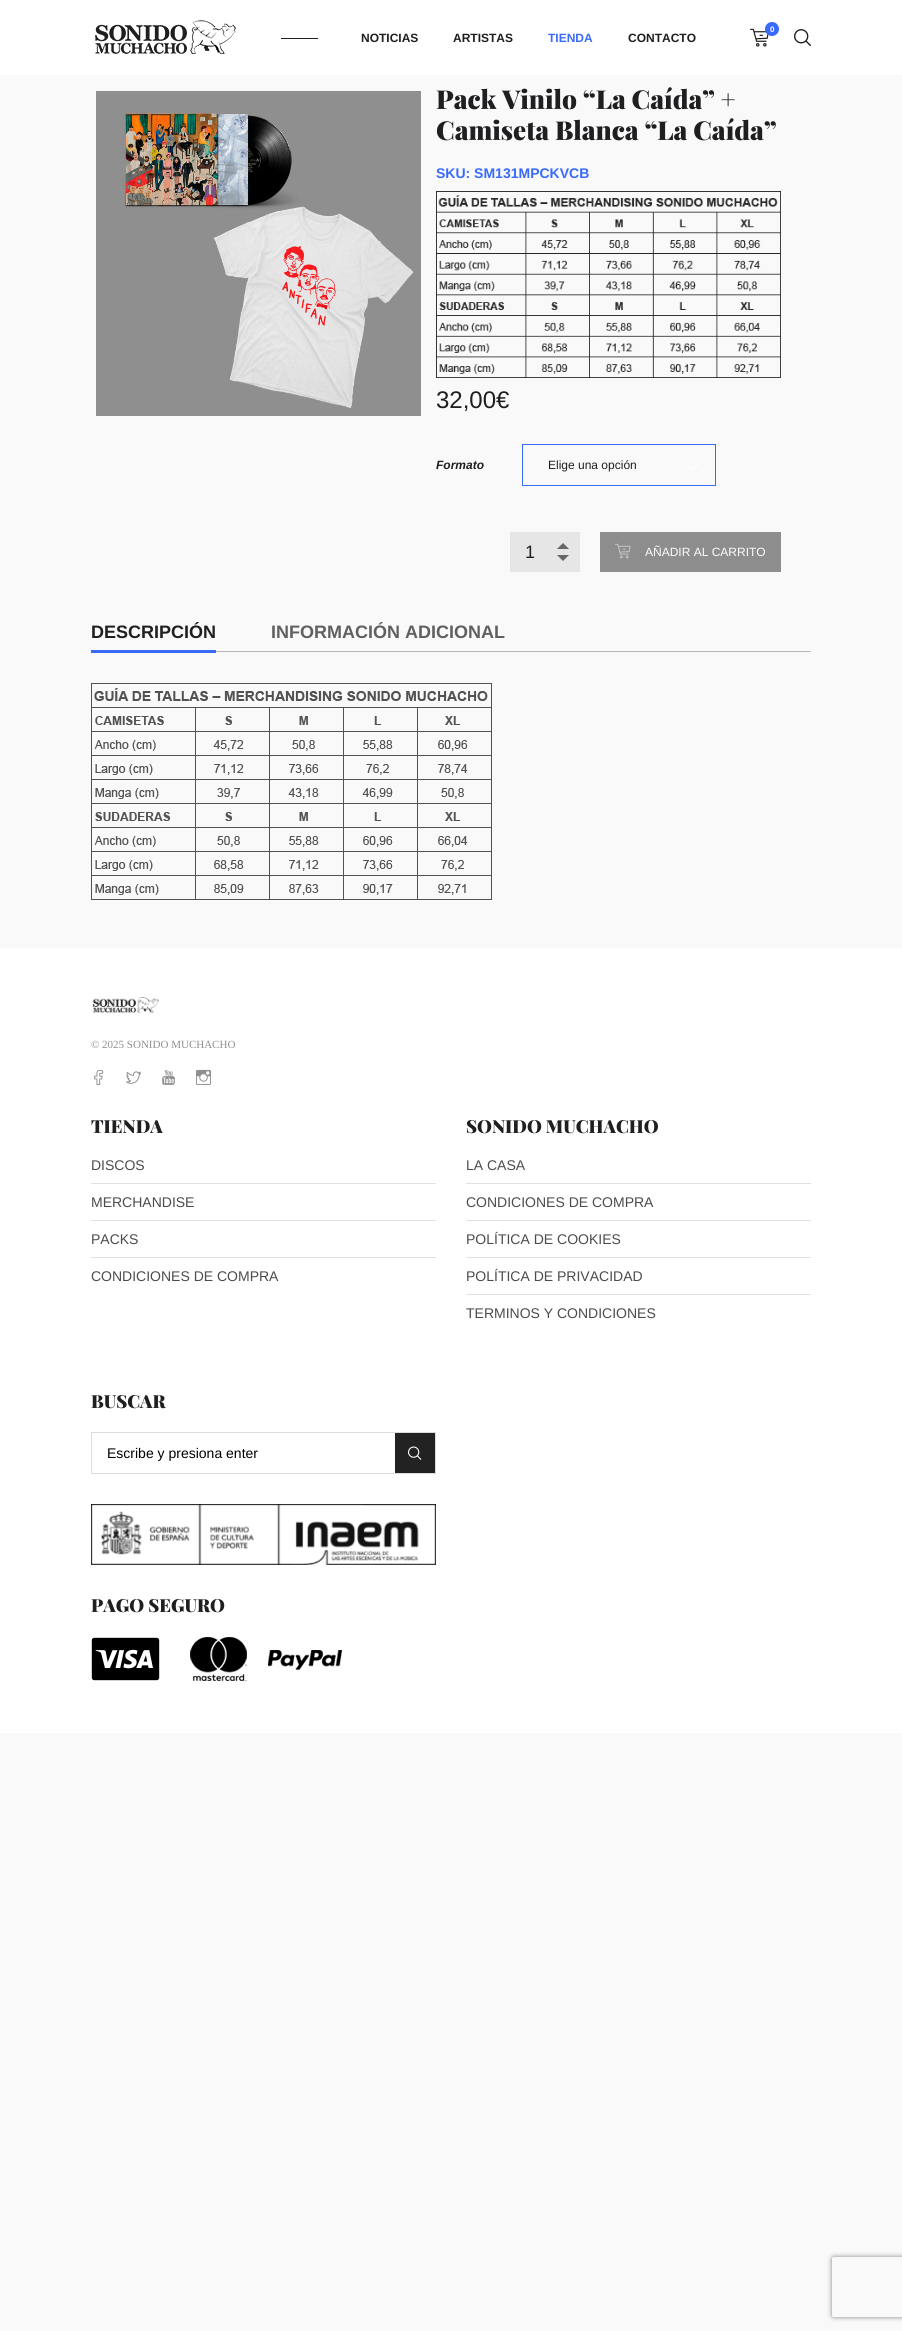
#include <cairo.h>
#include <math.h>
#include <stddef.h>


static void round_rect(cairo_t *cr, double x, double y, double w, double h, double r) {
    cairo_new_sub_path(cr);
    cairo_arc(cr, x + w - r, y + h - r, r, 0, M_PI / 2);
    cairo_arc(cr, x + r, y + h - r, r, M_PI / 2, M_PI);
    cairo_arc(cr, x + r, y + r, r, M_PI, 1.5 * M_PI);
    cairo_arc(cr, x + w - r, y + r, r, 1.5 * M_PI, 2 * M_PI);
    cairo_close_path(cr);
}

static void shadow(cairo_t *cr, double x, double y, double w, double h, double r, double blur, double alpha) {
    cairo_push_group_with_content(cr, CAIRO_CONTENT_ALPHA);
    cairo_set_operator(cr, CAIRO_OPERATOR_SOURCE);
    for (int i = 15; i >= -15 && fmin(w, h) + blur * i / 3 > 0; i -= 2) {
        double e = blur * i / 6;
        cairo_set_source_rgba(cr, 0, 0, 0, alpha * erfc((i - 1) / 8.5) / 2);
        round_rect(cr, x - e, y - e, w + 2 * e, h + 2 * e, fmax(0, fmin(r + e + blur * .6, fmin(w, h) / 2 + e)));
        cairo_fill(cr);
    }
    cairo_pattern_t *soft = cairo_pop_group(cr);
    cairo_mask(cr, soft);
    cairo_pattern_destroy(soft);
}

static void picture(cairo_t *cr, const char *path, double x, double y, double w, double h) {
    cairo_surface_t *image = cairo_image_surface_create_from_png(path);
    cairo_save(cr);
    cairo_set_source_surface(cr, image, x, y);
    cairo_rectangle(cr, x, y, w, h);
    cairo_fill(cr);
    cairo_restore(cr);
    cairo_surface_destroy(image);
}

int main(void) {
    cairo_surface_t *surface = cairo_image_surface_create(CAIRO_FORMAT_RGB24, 902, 2331);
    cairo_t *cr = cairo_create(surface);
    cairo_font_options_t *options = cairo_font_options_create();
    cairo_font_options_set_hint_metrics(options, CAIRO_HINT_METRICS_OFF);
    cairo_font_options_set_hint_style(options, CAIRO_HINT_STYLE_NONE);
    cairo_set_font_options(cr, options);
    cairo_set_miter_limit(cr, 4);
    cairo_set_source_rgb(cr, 0.973, 0.973, 0.973);
    cairo_paint(cr);
    cairo_set_source_rgb(cr, 1, 1, 1);
    cairo_rectangle(cr, 0, 0, 902, 75);
    cairo_fill(cr);
    picture(cr, "img1.png", 95, 20, 141, 34);
    picture(cr, "img2.png", 750, 28, 19, 19);
    cairo_set_source_rgb(cr, 0.224, 0.416, 0.988);
    cairo_arc(cr, 772, 29, 7, 0, 2 * M_PI);
    cairo_fill(cr);
    cairo_select_font_face(cr, "Liberation Sans", CAIRO_FONT_SLANT_NORMAL, CAIRO_FONT_WEIGHT_BOLD);
    cairo_set_font_size(cr, 8);
    cairo_set_source_rgb(cr, 0.988, 0.988, 0.988);
    cairo_move_to(cr, 770, 32);
    cairo_show_text(cr, "0");
    picture(cr, "img3.png", 794, 29, 17, 17);
    cairo_set_source_rgb(cr, 0.122, 0.118, 0.129);
    cairo_rectangle(cr, 281, 38, 37, 1);
    cairo_fill(cr);
    cairo_set_font_size(cr, 12);
    cairo_move_to(cr, 361, 42);
    cairo_show_text(cr, "NOTICIAS");
    cairo_move_to(cr, 453, 42);
    cairo_show_text(cr, "ARTISTAS");
    cairo_set_source_rgb(cr, 0.224, 0.416, 0.988);
    cairo_move_to(cr, 548, 42);
    cairo_show_text(cr, "TIENDA");
    cairo_set_source_rgb(cr, 0.122, 0.118, 0.129);
    cairo_move_to(cr, 628, 42);
    cairo_show_text(cr, "CONTACTO");
    picture(cr, "img4.png", 96, 91, 325, 325);
    cairo_select_font_face(cr, "Playfair Display Black", CAIRO_FONT_SLANT_NORMAL, CAIRO_FONT_WEIGHT_NORMAL);
    cairo_set_font_size(cr, 26);
    cairo_move_to(cr, 436, 109);
    cairo_show_text(cr, "Pack Vinilo “La Caída” +");
    cairo_move_to(cr, 436, 140);
    cairo_show_text(cr, "Camiseta Blanca “La Caída”");
    cairo_select_font_face(cr, "Liberation Sans", CAIRO_FONT_SLANT_NORMAL, CAIRO_FONT_WEIGHT_BOLD);
    cairo_set_font_size(cr, 14);
    cairo_set_source_rgb(cr, 0.224, 0.416, 0.988);
    cairo_move_to(cr, 436, 178);
    cairo_show_text(cr, "SKU: SM131MPCKVCB");
    picture(cr, "img5.png", 436, 191, 345, 187);
    cairo_select_font_face(cr, "Liberation Sans", CAIRO_FONT_SLANT_NORMAL, CAIRO_FONT_WEIGHT_NORMAL);
    cairo_set_font_size(cr, 24);
    cairo_set_source_rgb(cr, 0.122, 0.118, 0.129);
    cairo_move_to(cr, 436, 408);
    cairo_show_text(cr, "32,00€");
    cairo_select_font_face(cr, "Liberation Sans", CAIRO_FONT_SLANT_ITALIC, CAIRO_FONT_WEIGHT_BOLD);
    cairo_set_font_size(cr, 12);
    cairo_move_to(cr, 436, 469);
    cairo_show_text(cr, "Formato");
    picture(cr, "img6.png", 686, 463, 13, 7);
    cairo_rectangle(cr, 522.5, 444.5, 193, 41);
    cairo_set_source_rgb(cr, 0.224, 0.416, 0.988);
    cairo_set_line_width(cr, 1);
    cairo_stroke(cr);
    cairo_select_font_face(cr, "Liberation Sans", CAIRO_FONT_SLANT_NORMAL, CAIRO_FONT_WEIGHT_NORMAL);
    cairo_set_source_rgb(cr, 0.122, 0.118, 0.129);
    cairo_move_to(cr, 548, 469);
    cairo_show_text(cr, "Elige una opción");
    cairo_set_source_rgb(cr, 0.902, 0.902, 0.902);
    cairo_rectangle(cr, 510, 532, 70, 40);
    cairo_fill(cr);
    cairo_set_font_size(cr, 18);
    cairo_set_source_rgb(cr, 0.122, 0.118, 0.129);
    cairo_move_to(cr, 525, 558);
    cairo_show_text(cr, "1");
    cairo_set_source_rgb(cr, 0.4, 0.4, 0.4);
    cairo_new_path(cr);
    cairo_move_to(cr, 557, 555);
    cairo_line_to(cr, 569, 555);
    cairo_line_to(cr, 563, 561);
    cairo_close_path(cr);
    cairo_move_to(cr, 569, 549);
    cairo_line_to(cr, 557, 549);
    cairo_line_to(cr, 563, 543);
    cairo_close_path(cr);
    cairo_fill(cr);
    cairo_set_source_rgb(cr, 0.553, 0.553, 0.553);
    cairo_rectangle(cr, 600, 532, 181, 40);
    cairo_fill(cr);
    picture(cr, "img7.png", 615, 543, 16, 16);
    cairo_set_font_size(cr, 12);
    cairo_set_source_rgb(cr, 0.988, 0.988, 0.988);
    cairo_move_to(cr, 645, 556);
    cairo_show_text(cr, "AÑADIR AL CARRITO");
    cairo_select_font_face(cr, "Liberation Sans", CAIRO_FONT_SLANT_NORMAL, CAIRO_FONT_WEIGHT_BOLD);
    cairo_set_font_size(cr, 18);
    cairo_set_source_rgb(cr, 0.122, 0.118, 0.129);
    cairo_move_to(cr, 91, 638);
    cairo_show_text(cr, "DESCRIPCIÓN");
    cairo_set_source_rgb(cr, 0.224, 0.416, 0.988);
    cairo_rectangle(cr, 91, 650, 125, 3);
    cairo_fill(cr);
    cairo_set_source_rgb(cr, 0.376, 0.373, 0.384);
    cairo_move_to(cr, 271, 638);
    cairo_show_text(cr, "INFORMACIÓN ADICIONAL");
    cairo_set_source_rgb(cr, 0.718, 0.718, 0.718);
    cairo_rectangle(cr, 216, 651, 595, 1);
    cairo_fill(cr);
    picture(cr, "img8.png", 91, 683, 401, 217);
    cairo_set_source_rgb(cr, 1, 1, 1);
    cairo_rectangle(cr, 0, 948, 902, 785);
    cairo_fill(cr);
    picture(cr, "img9.png", 92, 997, 67, 16);
    cairo_select_font_face(cr, "Liberation Serif", CAIRO_FONT_SLANT_NORMAL, CAIRO_FONT_WEIGHT_NORMAL);
    cairo_set_font_size(cr, 11);
    cairo_set_source_rgb(cr, 0.561, 0.561, 0.565);
    cairo_move_to(cr, 91, 1048);
    cairo_show_text(cr, "© 2025 SONIDO MUCHACHO");
    picture(cr, "img10.png", 94, 1070, 10, 15);
    picture(cr, "img11.png", 126, 1071, 15, 13);
    picture(cr, "img12.png", 162, 1070, 13, 15);
    picture(cr, "img13.png", 196, 1069, 15, 16);
    cairo_select_font_face(cr, "Playfair Display Black", CAIRO_FONT_SLANT_NORMAL, CAIRO_FONT_WEIGHT_NORMAL);
    cairo_set_font_size(cr, 18);
    cairo_set_source_rgb(cr, 0.122, 0.118, 0.129);
    cairo_move_to(cr, 91, 1133);
    cairo_show_text(cr, "TIENDA");
    cairo_set_source_rgb(cr, 0.882, 0.882, 0.882);
    cairo_rectangle(cr, 91, 1183, 345, 1);
    cairo_fill(cr);
    cairo_select_font_face(cr, "Arimo", CAIRO_FONT_SLANT_NORMAL, CAIRO_FONT_WEIGHT_NORMAL);
    cairo_set_font_size(cr, 14);
    cairo_set_source_rgb(cr, 0.298, 0.294, 0.302);
    cairo_move_to(cr, 91, 1170);
    cairo_show_text(cr, "DISCOS");
    cairo_set_source_rgb(cr, 0.882, 0.882, 0.882);
    cairo_rectangle(cr, 91, 1220, 345, 1);
    cairo_fill(cr);
    cairo_set_source_rgb(cr, 0.298, 0.294, 0.302);
    cairo_move_to(cr, 91, 1207);
    cairo_show_text(cr, "MERCHANDISE");
    cairo_set_source_rgb(cr, 0.882, 0.882, 0.882);
    cairo_rectangle(cr, 91, 1257, 345, 1);
    cairo_fill(cr);
    cairo_set_source_rgb(cr, 0.298, 0.294, 0.302);
    cairo_move_to(cr, 91, 1244);
    cairo_show_text(cr, "PACKS");
    cairo_move_to(cr, 91, 1281);
    cairo_show_text(cr, "CONDICIONES DE COMPRA");
    cairo_select_font_face(cr, "Playfair Display Black", CAIRO_FONT_SLANT_NORMAL, CAIRO_FONT_WEIGHT_NORMAL);
    cairo_set_font_size(cr, 18);
    cairo_set_source_rgb(cr, 0.122, 0.118, 0.129);
    cairo_move_to(cr, 466, 1133);
    cairo_show_text(cr, "SONIDO MUCHACHO");
    cairo_set_source_rgb(cr, 0.882, 0.882, 0.882);
    cairo_rectangle(cr, 466, 1183, 345, 1);
    cairo_fill(cr);
    cairo_select_font_face(cr, "Arimo", CAIRO_FONT_SLANT_NORMAL, CAIRO_FONT_WEIGHT_NORMAL);
    cairo_set_font_size(cr, 14);
    cairo_set_source_rgb(cr, 0.298, 0.294, 0.302);
    cairo_move_to(cr, 466, 1170);
    cairo_show_text(cr, "LA CASA");
    cairo_set_source_rgb(cr, 0.882, 0.882, 0.882);
    cairo_rectangle(cr, 466, 1220, 345, 1);
    cairo_fill(cr);
    cairo_set_source_rgb(cr, 0.298, 0.294, 0.302);
    cairo_move_to(cr, 466, 1207);
    cairo_show_text(cr, "CONDICIONES DE COMPRA");
    cairo_set_source_rgb(cr, 0.882, 0.882, 0.882);
    cairo_rectangle(cr, 466, 1257, 345, 1);
    cairo_fill(cr);
    cairo_set_source_rgb(cr, 0.298, 0.294, 0.302);
    cairo_move_to(cr, 466, 1244);
    cairo_show_text(cr, "POLÍTICA DE COOKIES");
    cairo_set_source_rgb(cr, 0.882, 0.882, 0.882);
    cairo_rectangle(cr, 466, 1294, 345, 1);
    cairo_fill(cr);
    cairo_set_source_rgb(cr, 0.298, 0.294, 0.302);
    cairo_move_to(cr, 466, 1281);
    cairo_show_text(cr, "POLÍTICA DE PRIVACIDAD");
    cairo_move_to(cr, 466, 1318);
    cairo_show_text(cr, "TERMINOS Y CONDICIONES");
    cairo_select_font_face(cr, "Playfair Display Black", CAIRO_FONT_SLANT_NORMAL, CAIRO_FONT_WEIGHT_NORMAL);
    cairo_set_font_size(cr, 18);
    cairo_set_source_rgb(cr, 0.122, 0.118, 0.129);
    cairo_move_to(cr, 91, 1408);
    cairo_show_text(cr, "BUSCAR");
    cairo_rectangle(cr, 91.5, 1432.5, 344, 41);
    cairo_set_source_rgb(cr, 0.863, 0.863, 0.863);
    cairo_stroke(cr);
    cairo_select_font_face(cr, "Liberation Sans", CAIRO_FONT_SLANT_NORMAL, CAIRO_FONT_WEIGHT_NORMAL);
    cairo_set_font_size(cr, 14);
    cairo_set_source_rgb(cr, 0, 0, 0);
    cairo_move_to(cr, 107, 1458);
    cairo_show_text(cr, "Escribe y presiona enter");
    cairo_set_source_rgb(cr, 0.133, 0.133, 0.133);
    cairo_rectangle(cr, 395, 1433, 40, 40);
    cairo_fill(cr);
    picture(cr, "img14.png", 408, 1446, 14, 14);
    picture(cr, "img15.png", 91, 1504, 345, 61);
    cairo_select_font_face(cr, "Playfair Display Black", CAIRO_FONT_SLANT_NORMAL, CAIRO_FONT_WEIGHT_NORMAL);
    cairo_set_font_size(cr, 18);
    cairo_set_source_rgb(cr, 0.122, 0.118, 0.129);
    cairo_move_to(cr, 91, 1612);
    cairo_show_text(cr, "PAGO SEGURO");
    picture(cr, "img16.png", 91, 1637, 251, 44);
    cairo_save(cr);
    cairo_set_fill_rule(cr, CAIRO_FILL_RULE_EVEN_ODD);
    cairo_new_path(cr);
    cairo_move_to(cr, 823, 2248);
    cairo_line_to(cr, 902, 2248);
    cairo_line_to(cr, 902, 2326);
    cairo_line_to(cr, 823, 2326);
    cairo_close_path(cr);
    cairo_move_to(cr, 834, 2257);
    cairo_line_to(cr, 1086, 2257);
    cairo_curve_to(cr, 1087, 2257, 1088, 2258, 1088, 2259);
    cairo_line_to(cr, 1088, 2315);
    cairo_curve_to(cr, 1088, 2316, 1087, 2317, 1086, 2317);
    cairo_line_to(cr, 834, 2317);
    cairo_curve_to(cr, 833, 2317, 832, 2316, 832, 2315);
    cairo_line_to(cr, 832, 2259);
    cairo_curve_to(cr, 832, 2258, 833, 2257, 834, 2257);
    cairo_close_path(cr);
    cairo_clip(cr);
    cairo_set_source_rgb(cr, 0.502, 0.502, 0.502);
    shadow(cr, 832, 2257, 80, 60, 2, 2.5, 1);
    cairo_restore(cr);
    cairo_surface_write_to_png(surface, "page.png");
    cairo_font_options_destroy(options);
    cairo_destroy(cr);
    cairo_surface_destroy(surface);
    return 0;
}
